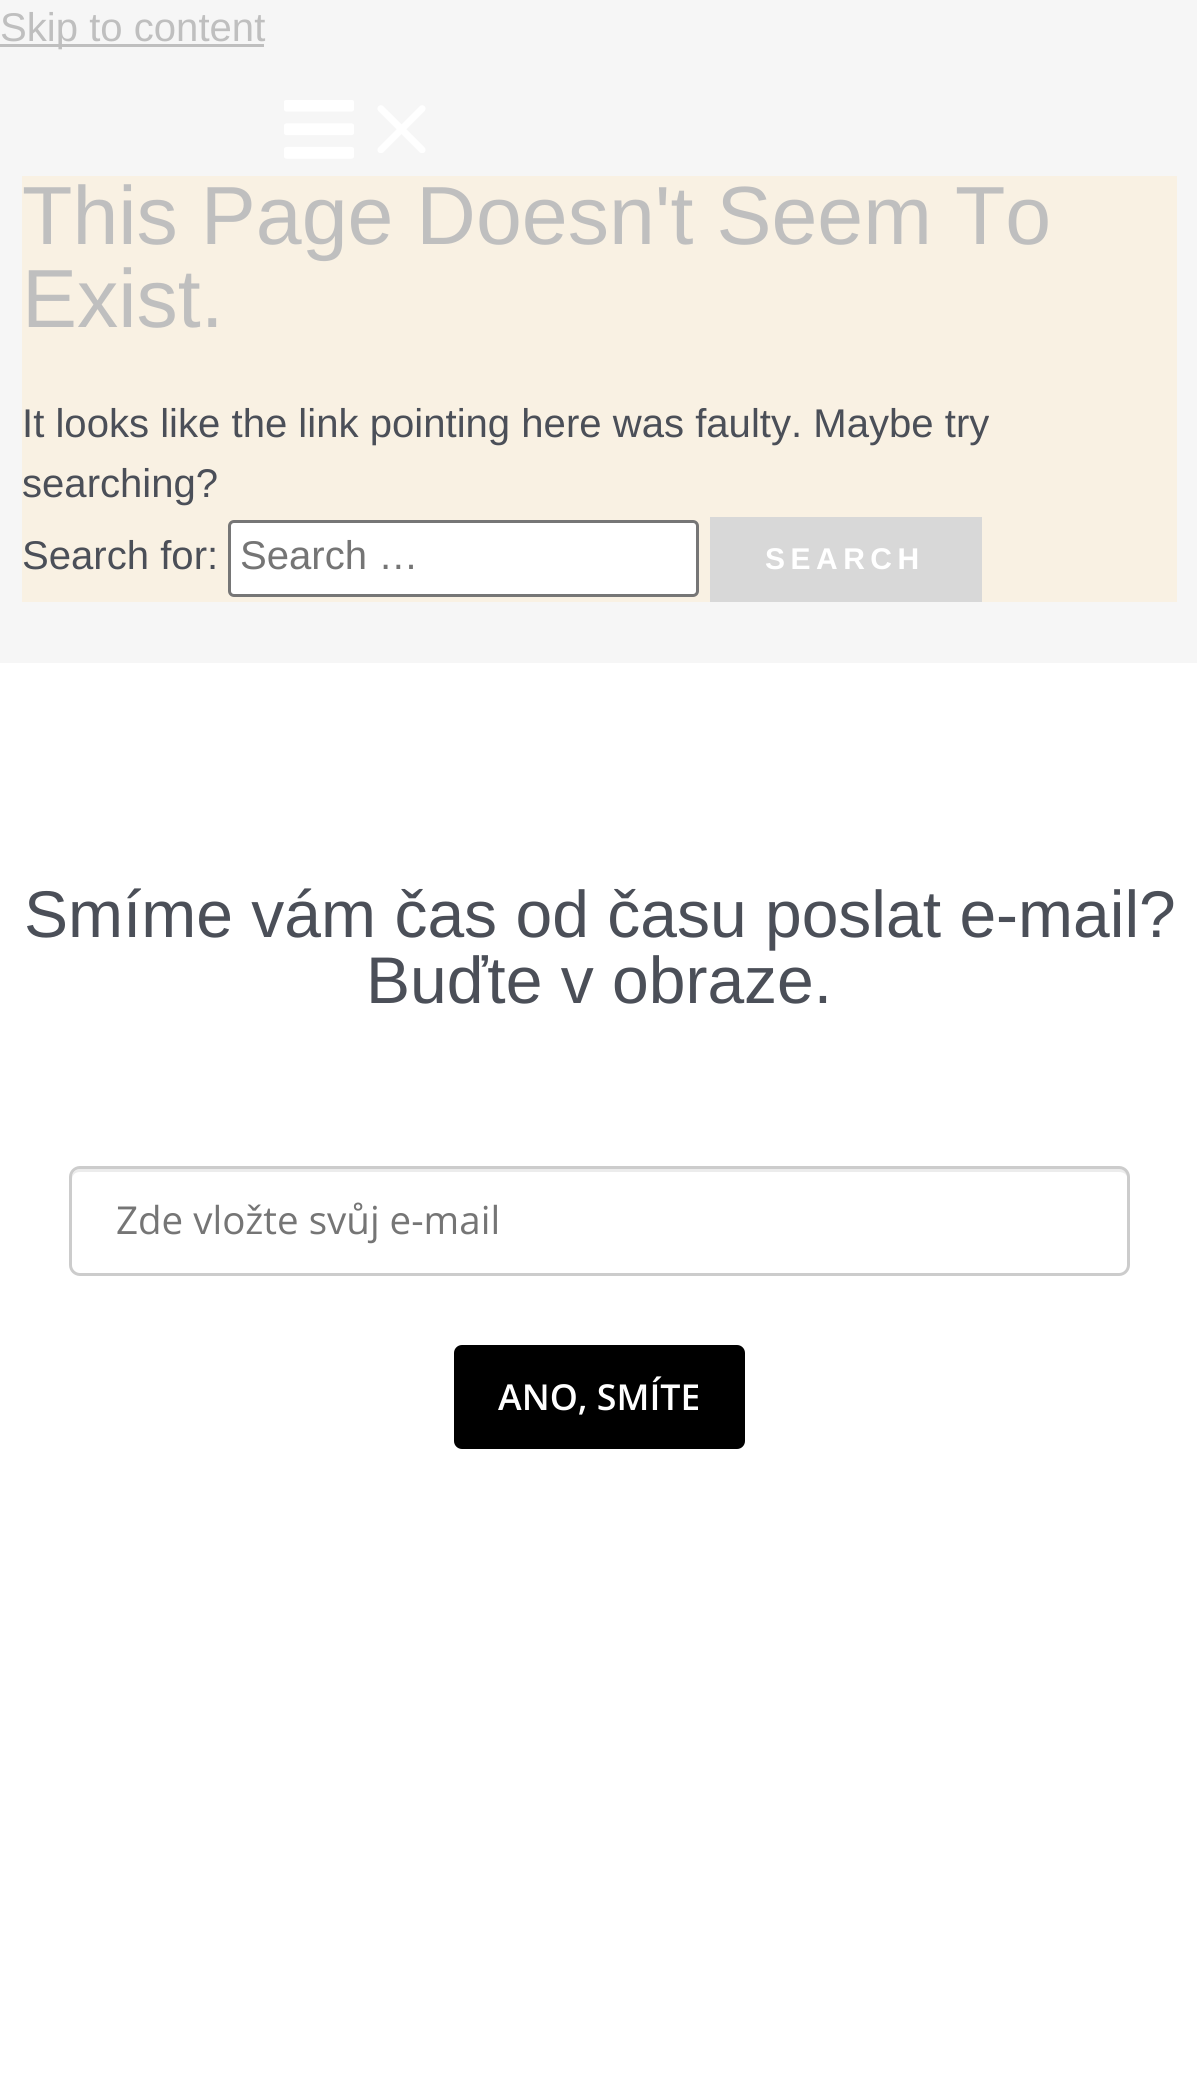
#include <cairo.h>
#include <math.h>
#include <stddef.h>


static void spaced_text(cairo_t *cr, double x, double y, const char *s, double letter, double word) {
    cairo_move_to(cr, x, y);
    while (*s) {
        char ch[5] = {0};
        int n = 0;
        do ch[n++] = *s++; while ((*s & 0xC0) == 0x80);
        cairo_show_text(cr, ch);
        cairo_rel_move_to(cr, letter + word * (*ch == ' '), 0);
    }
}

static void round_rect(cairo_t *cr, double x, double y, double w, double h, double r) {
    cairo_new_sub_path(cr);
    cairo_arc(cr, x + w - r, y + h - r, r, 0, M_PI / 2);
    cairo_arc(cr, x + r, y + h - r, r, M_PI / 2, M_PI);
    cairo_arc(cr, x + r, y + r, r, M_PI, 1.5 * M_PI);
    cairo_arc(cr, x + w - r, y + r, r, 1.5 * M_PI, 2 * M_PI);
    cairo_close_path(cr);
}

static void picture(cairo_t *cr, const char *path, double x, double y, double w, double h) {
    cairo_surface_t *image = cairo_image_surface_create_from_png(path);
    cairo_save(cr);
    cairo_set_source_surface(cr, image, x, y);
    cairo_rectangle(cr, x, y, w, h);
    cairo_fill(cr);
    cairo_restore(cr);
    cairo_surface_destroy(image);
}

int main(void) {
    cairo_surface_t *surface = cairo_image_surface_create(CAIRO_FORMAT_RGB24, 1197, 2083);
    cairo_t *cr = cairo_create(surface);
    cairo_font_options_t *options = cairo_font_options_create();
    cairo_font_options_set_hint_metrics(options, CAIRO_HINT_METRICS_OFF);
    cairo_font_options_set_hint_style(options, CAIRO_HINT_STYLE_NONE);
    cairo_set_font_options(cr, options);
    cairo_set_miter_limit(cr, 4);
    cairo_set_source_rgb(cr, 0.961, 0.961, 0.961);
    cairo_paint(cr);
    cairo_set_source_rgb(cr, 0.749, 0.749, 0.749);
    cairo_rectangle(cr, 0, 44, 264, 3);
    cairo_fill(cr);
    cairo_select_font_face(cr, "Liberation Sans", CAIRO_FONT_SLANT_NORMAL, CAIRO_FONT_WEIGHT_NORMAL);
    cairo_set_font_size(cr, 40.1);
    cairo_move_to(cr, 0, 41);
    cairo_show_text(cr, "Skip to content");
    picture(cr, "img1.png", 284, 100, 70, 59);
    picture(cr, "img2.png", 377, 105, 49, 48);
    cairo_set_source_rgb(cr, 0.973, 0.945, 0.89);
    cairo_rectangle(cr, 22, 176, 1155, 426);
    cairo_fill(cr);
    cairo_set_font_size(cr, 82.5);
    cairo_set_source_rgb(cr, 0.749, 0.749, 0.749);
    cairo_move_to(cr, 22, 244);
    cairo_show_text(cr, "This Page Doesn't Seem To");
    cairo_move_to(cr, 22, 327);
    cairo_show_text(cr, "Exist.");
    cairo_set_font_size(cr, 40.1);
    cairo_set_source_rgb(cr, 0.294, 0.31, 0.345);
    cairo_move_to(cr, 22, 437);
    cairo_show_text(cr, "It looks like the link pointing here was faulty. Maybe try");
    cairo_move_to(cr, 22, 497);
    cairo_show_text(cr, "searching?");
    cairo_move_to(cr, 22, 569);
    cairo_show_text(cr, "Search for:");
    cairo_set_source_rgb(cr, 1, 1, 1);
    round_rect(cr, 229.5, 521.5, 468, 74, 4.5);
    cairo_fill_preserve(cr);
    cairo_set_source_rgb(cr, 0.463, 0.463, 0.463);
    cairo_set_line_width(cr, 3);
    cairo_stroke(cr);
    cairo_set_source_rgb(cr, 0.459, 0.459, 0.459);
    cairo_move_to(cr, 240, 569);
    cairo_show_text(cr, "Search …");
    cairo_set_source_rgb(cr, 0.847, 0.847, 0.847);
    cairo_rectangle(cr, 710, 517, 272, 85);
    cairo_fill(cr);
    cairo_select_font_face(cr, "Liberation Sans", CAIRO_FONT_SLANT_NORMAL, CAIRO_FONT_WEIGHT_BOLD);
    cairo_set_font_size(cr, 30);
    cairo_set_source_rgb(cr, 1, 1, 1);
    spaced_text(cr, 765, 569, "SEARCH", 5.5, 0);
    cairo_rectangle(cr, 0, 663, 1197, 1420);
    cairo_fill(cr);
    cairo_select_font_face(cr, "Liberation Sans", CAIRO_FONT_SLANT_NORMAL, CAIRO_FONT_WEIGHT_NORMAL);
    cairo_set_font_size(cr, 66);
    cairo_set_source_rgb(cr, 0.294, 0.31, 0.345);
    cairo_move_to(cr, 24, 937);
    cairo_show_text(cr, "Smíme vám čas od času poslat e-mail?");
    cairo_move_to(cr, 366, 1003);
    cairo_show_text(cr, "Buďte v obraze.");
    cairo_set_source_rgb(cr, 0.925, 0.925, 0.925);
    cairo_new_path(cr);
    cairo_move_to(cr, 80, 1172);
    cairo_line_to(cr, 1119, 1172);
    cairo_curve_to(cr, 1124, 1172, 1128, 1175, 1128, 1180);
    cairo_line_to(cr, 1128, 1177);
    cairo_curve_to(cr, 1128, 1173, 1124, 1169, 1120, 1169);
    cairo_line_to(cr, 80, 1169);
    cairo_curve_to(cr, 76, 1169, 72, 1173, 72, 1177);
    cairo_line_to(cr, 72, 1180);
    cairo_curve_to(cr, 72, 1175, 75, 1172, 80, 1172);
    cairo_close_path(cr);
    cairo_fill(cr);
    round_rect(cr, 70.5, 1167.5, 1058, 107, 9.5);
    cairo_set_source_rgb(cr, 0.8, 0.8, 0.8);
    cairo_stroke(cr);
    cairo_select_font_face(cr, "Open Sans", CAIRO_FONT_SLANT_NORMAL, CAIRO_FONT_WEIGHT_NORMAL);
    cairo_set_font_size(cr, 38.5);
    cairo_set_source_rgb(cr, 0.459, 0.459, 0.459);
    cairo_move_to(cr, 116, 1234);
    cairo_show_text(cr, "Zde vložte svůj e-mail");
    cairo_set_source_rgb(cr, 0, 0, 0);
    round_rect(cr, 454, 1345, 291, 104, 8);
    cairo_fill(cr);
    cairo_select_font_face(cr, "Open Sans SemiBold", CAIRO_FONT_SLANT_NORMAL, CAIRO_FONT_WEIGHT_NORMAL);
    cairo_set_font_size(cr, 35.75);
    cairo_set_source_rgb(cr, 1, 1, 1);
    cairo_move_to(cr, 498, 1410);
    cairo_show_text(cr, "ANO, SMÍTE");
    cairo_surface_write_to_png(surface, "page.png");
    cairo_font_options_destroy(options);
    cairo_destroy(cr);
    cairo_surface_destroy(surface);
    return 0;
}
